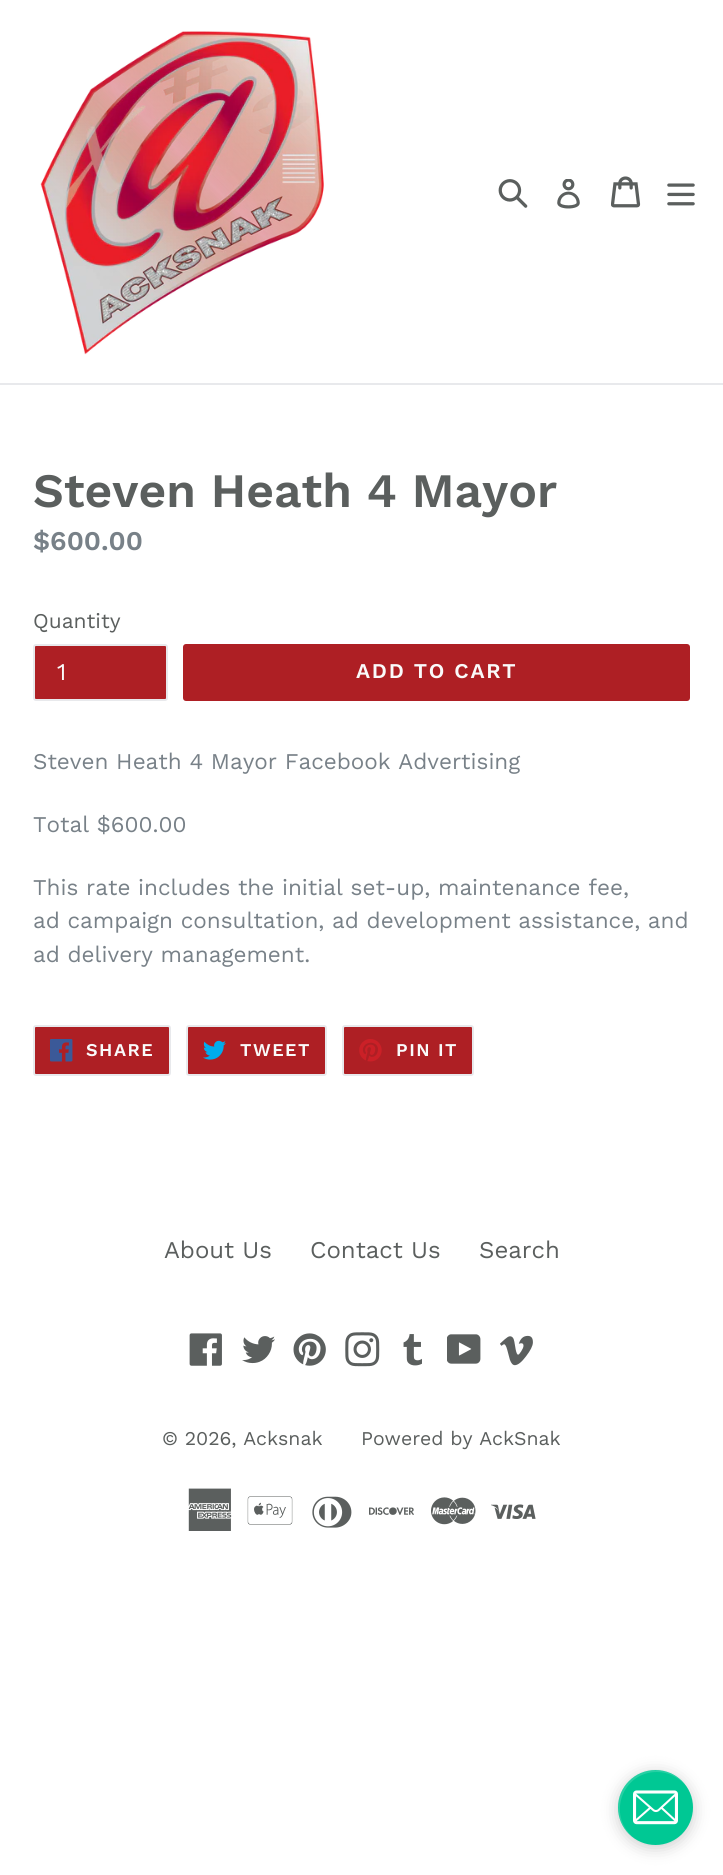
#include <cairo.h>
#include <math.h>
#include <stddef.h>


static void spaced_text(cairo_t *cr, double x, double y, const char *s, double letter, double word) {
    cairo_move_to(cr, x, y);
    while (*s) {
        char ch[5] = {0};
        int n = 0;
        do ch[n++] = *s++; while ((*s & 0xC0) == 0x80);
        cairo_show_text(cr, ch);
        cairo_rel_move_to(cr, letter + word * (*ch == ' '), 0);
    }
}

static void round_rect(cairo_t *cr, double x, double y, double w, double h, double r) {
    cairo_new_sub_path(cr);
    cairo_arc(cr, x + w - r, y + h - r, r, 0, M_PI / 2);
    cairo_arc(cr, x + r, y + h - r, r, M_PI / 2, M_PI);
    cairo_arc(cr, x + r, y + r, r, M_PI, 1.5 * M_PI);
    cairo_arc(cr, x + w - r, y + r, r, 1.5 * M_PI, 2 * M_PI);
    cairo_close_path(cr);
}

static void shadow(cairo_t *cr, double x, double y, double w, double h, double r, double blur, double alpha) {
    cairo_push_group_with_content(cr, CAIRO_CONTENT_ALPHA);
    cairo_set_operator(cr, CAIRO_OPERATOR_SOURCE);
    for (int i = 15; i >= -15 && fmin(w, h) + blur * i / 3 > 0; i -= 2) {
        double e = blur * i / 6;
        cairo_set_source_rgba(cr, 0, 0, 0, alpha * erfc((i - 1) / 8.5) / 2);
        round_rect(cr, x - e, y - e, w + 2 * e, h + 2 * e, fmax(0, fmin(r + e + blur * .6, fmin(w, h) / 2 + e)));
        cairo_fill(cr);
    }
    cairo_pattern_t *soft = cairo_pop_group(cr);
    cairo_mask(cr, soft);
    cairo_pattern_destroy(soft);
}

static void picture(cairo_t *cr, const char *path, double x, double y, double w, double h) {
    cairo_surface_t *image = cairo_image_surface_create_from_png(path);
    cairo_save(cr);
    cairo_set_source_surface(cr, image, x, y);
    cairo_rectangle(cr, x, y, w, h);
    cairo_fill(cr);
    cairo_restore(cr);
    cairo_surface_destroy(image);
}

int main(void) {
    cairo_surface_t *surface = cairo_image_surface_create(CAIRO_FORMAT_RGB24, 723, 1875);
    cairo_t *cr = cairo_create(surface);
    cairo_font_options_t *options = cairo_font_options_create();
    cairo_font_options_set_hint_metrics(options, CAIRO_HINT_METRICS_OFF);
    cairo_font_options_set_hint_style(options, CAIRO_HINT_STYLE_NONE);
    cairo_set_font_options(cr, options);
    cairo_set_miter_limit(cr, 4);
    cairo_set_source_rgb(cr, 1, 1, 1);
    cairo_paint(cr);
    cairo_set_source_rgb(cr, 0.91, 0.914, 0.922);
    cairo_rectangle(cr, 0, 383, 723, 2);
    cairo_fill(cr);
    picture(cr, "img1.png", 40, 31, 284, 324);
    picture(cr, "img2.png", 498, 179, 30, 29);
    picture(cr, "img3.png", 557, 179, 23, 30);
    picture(cr, "img4.png", 611, 176, 30, 32);
    picture(cr, "img5.png", 667, 183, 28, 23);
    cairo_select_font_face(cr, "Work Sans SemiBold", CAIRO_FONT_SLANT_NORMAL, CAIRO_FONT_WEIGHT_NORMAL);
    cairo_set_font_size(cr, 48);
    cairo_set_source_rgb(cr, 0.357, 0.373, 0.369);
    cairo_move_to(cr, 33, 507);
    cairo_show_text(cr, "Steven Heath 4 Mayor");
    cairo_set_font_size(cr, 27);
    cairo_set_source_rgb(cr, 0.471, 0.506, 0.533);
    cairo_move_to(cr, 33, 550);
    cairo_show_text(cr, "$600.00");
    cairo_select_font_face(cr, "Work Sans", CAIRO_FONT_SLANT_NORMAL, CAIRO_FONT_WEIGHT_NORMAL);
    cairo_set_font_size(cr, 21);
    cairo_set_source_rgb(cr, 0.357, 0.373, 0.369);
    cairo_move_to(cr, 33, 628);
    cairo_show_text(cr, "Quantity");
    cairo_set_source_rgb(cr, 0.682, 0.122, 0.141);
    round_rect(cr, 34, 645, 133, 55, 2);
    cairo_fill_preserve(cr);
    cairo_set_source_rgb(cr, 0.91, 0.914, 0.922);
    cairo_stroke(cr);
    cairo_set_font_size(cr, 24);
    cairo_set_source_rgb(cr, 0.98, 0.98, 0.98);
    cairo_move_to(cr, 57, 680);
    cairo_show_text(cr, "1");
    cairo_set_source_rgb(cr, 0.682, 0.122, 0.141);
    round_rect(cr, 183, 644, 507, 57, 3);
    cairo_fill(cr);
    cairo_select_font_face(cr, "Work Sans SemiBold", CAIRO_FONT_SLANT_NORMAL, CAIRO_FONT_WEIGHT_NORMAL);
    cairo_set_font_size(cr, 21);
    cairo_set_source_rgb(cr, 0.98, 0.98, 0.98);
    spaced_text(cr, 356, 678, "ADD TO CART", 1.75, 0);
    cairo_select_font_face(cr, "Work Sans", CAIRO_FONT_SLANT_NORMAL, CAIRO_FONT_WEIGHT_NORMAL);
    cairo_set_font_size(cr, 22.5);
    cairo_set_source_rgb(cr, 0.471, 0.506, 0.533);
    cairo_move_to(cr, 33, 769);
    cairo_show_text(cr, "Steven Heath 4 Mayor Facebook Advertising");
    cairo_move_to(cr, 33, 832);
    cairo_show_text(cr, "Total $600.00");
    cairo_move_to(cr, 33, 895);
    cairo_show_text(cr, "This rate includes the initial set-up, maintenance fee,");
    cairo_move_to(cr, 33, 928);
    cairo_show_text(cr, "ad campaign consultation, ad development assistance, and");
    cairo_move_to(cr, 33, 962);
    cairo_show_text(cr, "ad delivery management.");
    cairo_set_source_rgb(cr, 0.682, 0.122, 0.141);
    round_rect(cr, 34, 1026, 136, 49, 2);
    cairo_fill_preserve(cr);
    cairo_set_source_rgb(cr, 0.91, 0.914, 0.922);
    cairo_stroke(cr);
    picture(cr, "img6.png", 50, 1039, 23, 23);
    cairo_select_font_face(cr, "Work Sans SemiBold", CAIRO_FONT_SLANT_NORMAL, CAIRO_FONT_WEIGHT_NORMAL);
    cairo_set_font_size(cr, 18);
    cairo_set_source_rgb(cr, 0.98, 0.98, 0.98);
    spaced_text(cr, 86, 1056, "SHARE", 1.5, 0);
    cairo_set_source_rgb(cr, 0.682, 0.122, 0.141);
    round_rect(cr, 187, 1026, 139, 49, 2);
    cairo_fill_preserve(cr);
    cairo_set_source_rgb(cr, 0.91, 0.914, 0.922);
    cairo_stroke(cr);
    picture(cr, "img7.png", 203, 1040, 23, 20);
    cairo_set_source_rgb(cr, 0.98, 0.98, 0.98);
    spaced_text(cr, 240, 1056, "TWEET", 1.5, 0);
    cairo_set_source_rgb(cr, 0.682, 0.122, 0.141);
    round_rect(cr, 343, 1026, 130, 49, 2);
    cairo_fill_preserve(cr);
    cairo_set_source_rgb(cr, 0.91, 0.914, 0.922);
    cairo_stroke(cr);
    picture(cr, "img8.png", 359, 1039, 23, 23);
    cairo_set_source_rgb(cr, 0.98, 0.98, 0.98);
    spaced_text(cr, 396, 1056, "PIN IT", 1.5, 0);
    cairo_select_font_face(cr, "Work Sans", CAIRO_FONT_SLANT_NORMAL, CAIRO_FONT_WEIGHT_NORMAL);
    cairo_set_font_size(cr, 24);
    cairo_set_source_rgb(cr, 0.357, 0.373, 0.369);
    cairo_move_to(cr, 164, 1258);
    cairo_show_text(cr, "About Us");
    cairo_move_to(cr, 310, 1258);
    cairo_show_text(cr, "Contact Us");
    cairo_move_to(cr, 479, 1258);
    cairo_show_text(cr, "Search");
    picture(cr, "img9.png", 189, 1333, 33, 33);
    picture(cr, "img10.png", 242, 1336, 33, 28);
    picture(cr, "img11.png", 293, 1333, 33, 33);
    picture(cr, "img12.png", 345, 1332, 35, 35);
    picture(cr, "img13.png", 403, 1334, 19, 32);
    picture(cr, "img14.png", 447, 1334, 34, 30);
    picture(cr, "img15.png", 500, 1335, 33, 31);
    cairo_set_font_size(cr, 19.5);
    cairo_move_to(cr, 162, 1445);
    cairo_show_text(cr, "© 2026, Acksnak");
    cairo_move_to(cr, 361, 1445);
    cairo_show_text(cr, "Powered by AckSnak");
    picture(cr, "img16.png", 188, 1488, 44, 43);
    picture(cr, "img17.png", 247, 1496, 46, 29);
    picture(cr, "img18.png", 312, 1496, 40, 32);
    picture(cr, "img19.png", 369, 1507, 45, 8);
    picture(cr, "img20.png", 431, 1497, 45, 28);
    picture(cr, "img21.png", 491, 1504, 45, 15);
    cairo_set_source_rgb(cr, 0.502, 0.502, 0.502);
    shadow(cr, 618, 1773, 75, 75, 37.5, 8, 0.4);
    cairo_set_source_rgb(cr, 0, 0.784, 0.58);
    cairo_arc(cr, 655.5, 1807.5, 37.5, 0, 2 * M_PI);
    cairo_fill(cr);
    cairo_set_source_rgba(cr, 1, 1, 1, 0.15);
    cairo_new_path(cr);
    cairo_move_to(cr, 657, 1772);
    cairo_curve_to(cr, 668, 1772, 678, 1777, 685, 1785);
    cairo_curve_to(cr, 672, 1767, 645, 1765, 629, 1781);
    cairo_curve_to(cr, 613, 1797, 615, 1824, 633, 1837);
    cairo_curve_to(cr, 607, 1815, 622, 1772, 657, 1772);
    cairo_close_path(cr);
    cairo_fill(cr);
    picture(cr, "img22.png", 633, 1790, 45, 35);
    cairo_surface_write_to_png(surface, "page.png");
    cairo_font_options_destroy(options);
    cairo_destroy(cr);
    cairo_surface_destroy(surface);
    return 0;
}
